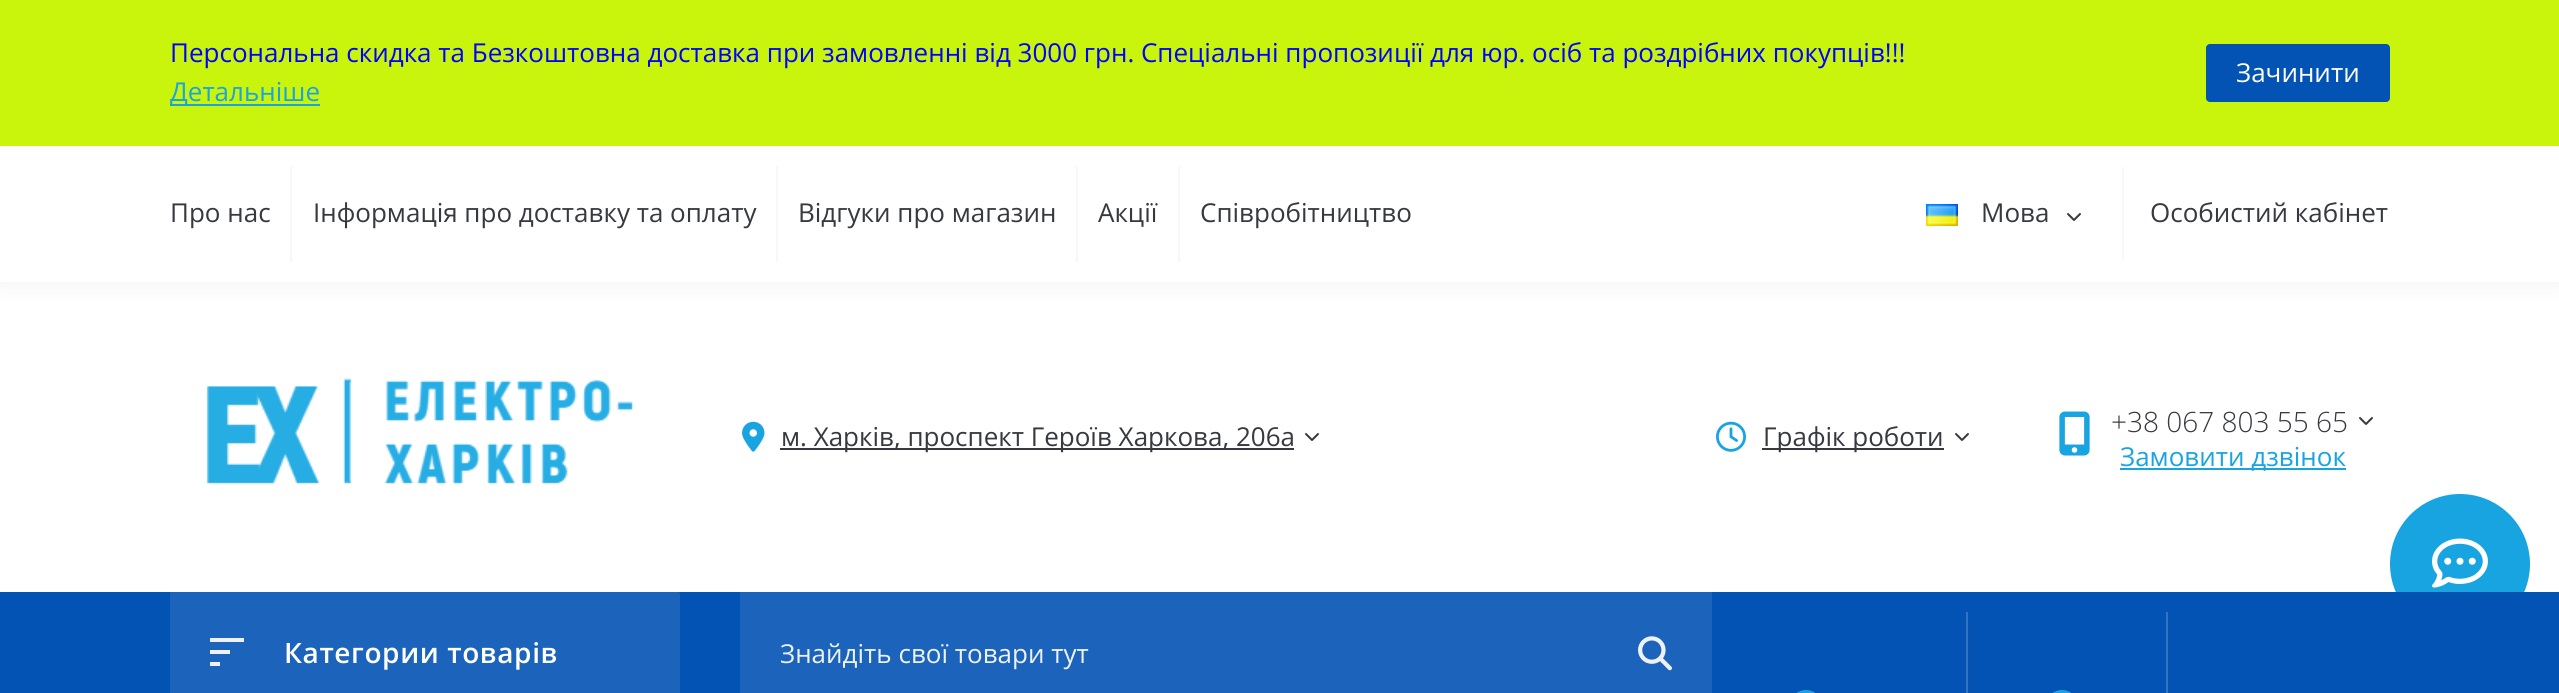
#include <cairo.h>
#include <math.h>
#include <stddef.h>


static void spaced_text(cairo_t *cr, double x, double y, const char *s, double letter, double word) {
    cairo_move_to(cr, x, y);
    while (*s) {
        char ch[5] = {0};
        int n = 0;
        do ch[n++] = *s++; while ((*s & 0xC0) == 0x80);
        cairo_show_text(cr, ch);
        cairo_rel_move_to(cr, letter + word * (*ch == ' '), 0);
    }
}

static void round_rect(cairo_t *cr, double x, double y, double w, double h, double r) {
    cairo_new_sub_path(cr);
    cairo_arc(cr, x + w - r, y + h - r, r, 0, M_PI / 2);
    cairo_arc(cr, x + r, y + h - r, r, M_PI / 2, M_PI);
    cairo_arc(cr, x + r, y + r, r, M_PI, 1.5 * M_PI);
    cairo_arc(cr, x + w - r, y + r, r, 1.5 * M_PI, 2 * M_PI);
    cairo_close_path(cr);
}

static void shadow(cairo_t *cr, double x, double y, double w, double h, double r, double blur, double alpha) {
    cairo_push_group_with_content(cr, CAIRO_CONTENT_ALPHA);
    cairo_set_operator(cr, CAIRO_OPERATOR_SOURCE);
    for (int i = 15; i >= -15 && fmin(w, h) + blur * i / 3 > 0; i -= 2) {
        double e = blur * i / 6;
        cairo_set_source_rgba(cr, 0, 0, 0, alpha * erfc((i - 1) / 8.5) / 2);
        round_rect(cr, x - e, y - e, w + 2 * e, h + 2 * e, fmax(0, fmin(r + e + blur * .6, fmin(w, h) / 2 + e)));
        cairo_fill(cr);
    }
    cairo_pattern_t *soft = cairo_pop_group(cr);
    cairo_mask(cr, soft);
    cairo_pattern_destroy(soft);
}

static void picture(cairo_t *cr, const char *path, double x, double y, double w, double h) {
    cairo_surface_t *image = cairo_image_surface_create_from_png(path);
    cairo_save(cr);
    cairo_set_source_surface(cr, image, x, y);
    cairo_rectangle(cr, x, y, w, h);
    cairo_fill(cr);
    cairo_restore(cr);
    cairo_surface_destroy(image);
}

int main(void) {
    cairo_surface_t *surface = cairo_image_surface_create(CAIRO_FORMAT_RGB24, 2559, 693);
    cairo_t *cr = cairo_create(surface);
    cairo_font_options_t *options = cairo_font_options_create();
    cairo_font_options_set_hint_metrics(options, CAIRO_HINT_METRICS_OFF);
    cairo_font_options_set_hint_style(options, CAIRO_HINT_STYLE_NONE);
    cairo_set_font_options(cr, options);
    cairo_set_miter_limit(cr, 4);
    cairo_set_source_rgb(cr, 1, 1, 1);
    cairo_paint(cr);
    cairo_set_source_rgb(cr, 0, 0, 0);
    shadow(cr, 0, 146, 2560, 136, 0, 15, 0.06);
    cairo_set_source_rgb(cr, 0.788, 0.957, 0.047);
    cairo_rectangle(cr, 0, 0, 2559, 146);
    cairo_fill(cr);
    cairo_select_font_face(cr, "Open Sans", CAIRO_FONT_SLANT_NORMAL, CAIRO_FONT_WEIGHT_NORMAL);
    cairo_set_font_size(cr, 26);
    cairo_set_source_rgb(cr, 0, 0, 1);
    cairo_move_to(cr, 170, 62);
    cairo_show_text(cr, "Персональна скидка та Безкоштовна доставка при замовленні від 3000 грн. Спеціальні пропозиції для юр. осіб та роздрібних покупців!!!");
    cairo_set_source_rgb(cr, 0.094, 0.643, 0.882);
    cairo_rectangle(cr, 170, 104, 150, 2);
    cairo_fill(cr);
    cairo_move_to(cr, 170, 101);
    cairo_show_text(cr, "Детальніше");
    cairo_set_source_rgb(cr, 0.012, 0.325, 0.706);
    round_rect(cr, 2206, 44, 184, 58, 4);
    cairo_fill(cr);
    cairo_set_source_rgb(cr, 1, 1, 1);
    cairo_move_to(cr, 2236, 82);
    cairo_show_text(cr, "Зачинити");
    cairo_rectangle(cr, 0, 146, 2559, 136);
    cairo_fill(cr);
    cairo_set_source_rgb(cr, 0.969, 0.969, 0.969);
    cairo_rectangle(cr, 290, 166, 2, 96);
    cairo_fill(cr);
    cairo_set_source_rgb(cr, 0.216, 0.224, 0.255);
    cairo_move_to(cr, 170, 222);
    cairo_show_text(cr, "Про нас");
    cairo_set_source_rgb(cr, 0.969, 0.969, 0.969);
    cairo_rectangle(cr, 776, 166, 2, 96);
    cairo_fill(cr);
    cairo_set_source_rgb(cr, 0.216, 0.224, 0.255);
    cairo_move_to(cr, 313, 222);
    cairo_show_text(cr, "Інформація про доставку та оплату");
    cairo_set_source_rgb(cr, 0.969, 0.969, 0.969);
    cairo_rectangle(cr, 1076, 166, 2, 96);
    cairo_fill(cr);
    cairo_set_source_rgb(cr, 0.216, 0.224, 0.255);
    cairo_move_to(cr, 798, 222);
    cairo_show_text(cr, "Відгуки про магазин");
    cairo_set_source_rgb(cr, 0.969, 0.969, 0.969);
    cairo_rectangle(cr, 1178, 166, 2, 96);
    cairo_fill(cr);
    cairo_set_source_rgb(cr, 0.216, 0.224, 0.255);
    cairo_move_to(cr, 1098, 222);
    cairo_show_text(cr, "Акції");
    cairo_move_to(cr, 1200, 222);
    cairo_show_text(cr, "Співробітництво");
    cairo_set_source_rgb(cr, 0.969, 0.969, 0.969);
    cairo_new_path(cr);
    cairo_move_to(cr, 2124, 166);
    cairo_line_to(cr, 2124, 262);
    cairo_line_to(cr, 2122, 260);
    cairo_line_to(cr, 2122, 168);
    cairo_close_path(cr);
    cairo_fill(cr);
    picture(cr, "img1.png", 1926, 204, 32, 22);
    cairo_set_source_rgb(cr, 0.216, 0.224, 0.255);
    cairo_move_to(cr, 1981, 222);
    cairo_show_text(cr, "Мова");
    picture(cr, "img2.png", 2067, 213, 14, 8);
    cairo_move_to(cr, 2150, 222);
    cairo_show_text(cr, "Особистий кабінет");
    picture(cr, "img3.png", 206, 378, 427, 106);
    picture(cr, "img4.png", 742, 421, 23, 31);
    cairo_rectangle(cr, 780, 448, 514, 2);
    cairo_fill(cr);
    cairo_move_to(cr, 781, 446);
    cairo_show_text(cr, "м. Харків, проспект Героїв Харкова, 206а");
    picture(cr, "img2.png", 1305, 433, 14, 8);
    picture(cr, "img5.png", 1716, 421, 30, 31);
    cairo_rectangle(cr, 1762, 448, 182, 2);
    cairo_fill(cr);
    cairo_move_to(cr, 1763, 446);
    cairo_show_text(cr, "Графік роботи");
    picture(cr, "img2.png", 1955, 433, 14, 8);
    picture(cr, "img6.png", 2059, 411, 31, 45);
    cairo_select_font_face(cr, "Open Sans Light", CAIRO_FONT_SLANT_NORMAL, CAIRO_FONT_WEIGHT_NORMAL);
    cairo_set_font_size(cr, 28);
    cairo_move_to(cr, 2111, 432);
    cairo_show_text(cr, "+38 067 803 55 65");
    picture(cr, "img2.png", 2359, 417, 14, 8);
    cairo_set_source_rgb(cr, 0.094, 0.643, 0.882);
    cairo_rectangle(cr, 2120, 468, 226, 2);
    cairo_fill(cr);
    cairo_select_font_face(cr, "Open Sans", CAIRO_FONT_SLANT_NORMAL, CAIRO_FONT_WEIGHT_NORMAL);
    cairo_set_font_size(cr, 26);
    cairo_move_to(cr, 2120, 466);
    cairo_show_text(cr, "Замовити дзвінок");
    cairo_new_path(cr);
    cairo_arc(cr, 2460, 564, 70, 0, 2 * M_PI);
    cairo_fill(cr);
    picture(cr, "img7.png", 2432, 538, 56, 50);
    cairo_set_source_rgb(cr, 0.012, 0.325, 0.706);
    cairo_rectangle(cr, 0, 592, 2559, 101);
    cairo_fill(cr);
    cairo_set_source_rgb(cr, 0.11, 0.392, 0.733);
    round_rect(cr, 170, 592, 510, 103, 2);
    cairo_fill(cr);
    cairo_set_source_rgb(cr, 0.933, 0.949, 0.961);
    cairo_rectangle(cr, 210, 638, 34, 4);
    cairo_fill(cr);
    cairo_rectangle(cr, 210, 650, 20, 4);
    cairo_fill(cr);
    cairo_rectangle(cr, 210, 662, 10, 4);
    cairo_fill(cr);
    cairo_select_font_face(cr, "Open Sans SemiBold", CAIRO_FONT_SLANT_NORMAL, CAIRO_FONT_WEIGHT_NORMAL);
    cairo_set_font_size(cr, 28);
    cairo_set_source_rgb(cr, 1, 1, 1);
    spaced_text(cr, 284, 663, "Категории товарів", 0.6, 0);
    cairo_set_source_rgb(cr, 0.11, 0.392, 0.733);
    cairo_rectangle(cr, 740, 592, 972, 101);
    cairo_fill(cr);
    cairo_select_font_face(cr, "Open Sans", CAIRO_FONT_SLANT_NORMAL, CAIRO_FONT_WEIGHT_NORMAL);
    cairo_set_font_size(cr, 26);
    cairo_set_source_rgb(cr, 0.933, 0.949, 0.961);
    cairo_move_to(cr, 780, 663);
    cairo_show_text(cr, "Знайдіть свої товари тут");
    picture(cr, "img8.png", 1638, 636, 34, 35);
    cairo_set_source_rgb(cr, 0.2, 0.451, 0.753);
    cairo_rectangle(cr, 1966, 612, 2, 81);
    cairo_fill(cr);
    cairo_set_source_rgb(cr, 0.094, 0.643, 0.882);
    round_rect(cr, 1790, 690, 32, 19, 16);
    cairo_fill(cr);
    cairo_set_source_rgb(cr, 0.2, 0.451, 0.753);
    cairo_rectangle(cr, 2166, 612, 2, 81);
    cairo_fill(cr);
    cairo_set_source_rgb(cr, 0.094, 0.643, 0.882);
    round_rect(cr, 2046, 690, 32, 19, 16);
    cairo_fill(cr);
    cairo_surface_write_to_png(surface, "page.png");
    cairo_font_options_destroy(options);
    cairo_destroy(cr);
    cairo_surface_destroy(surface);
    return 0;
}
